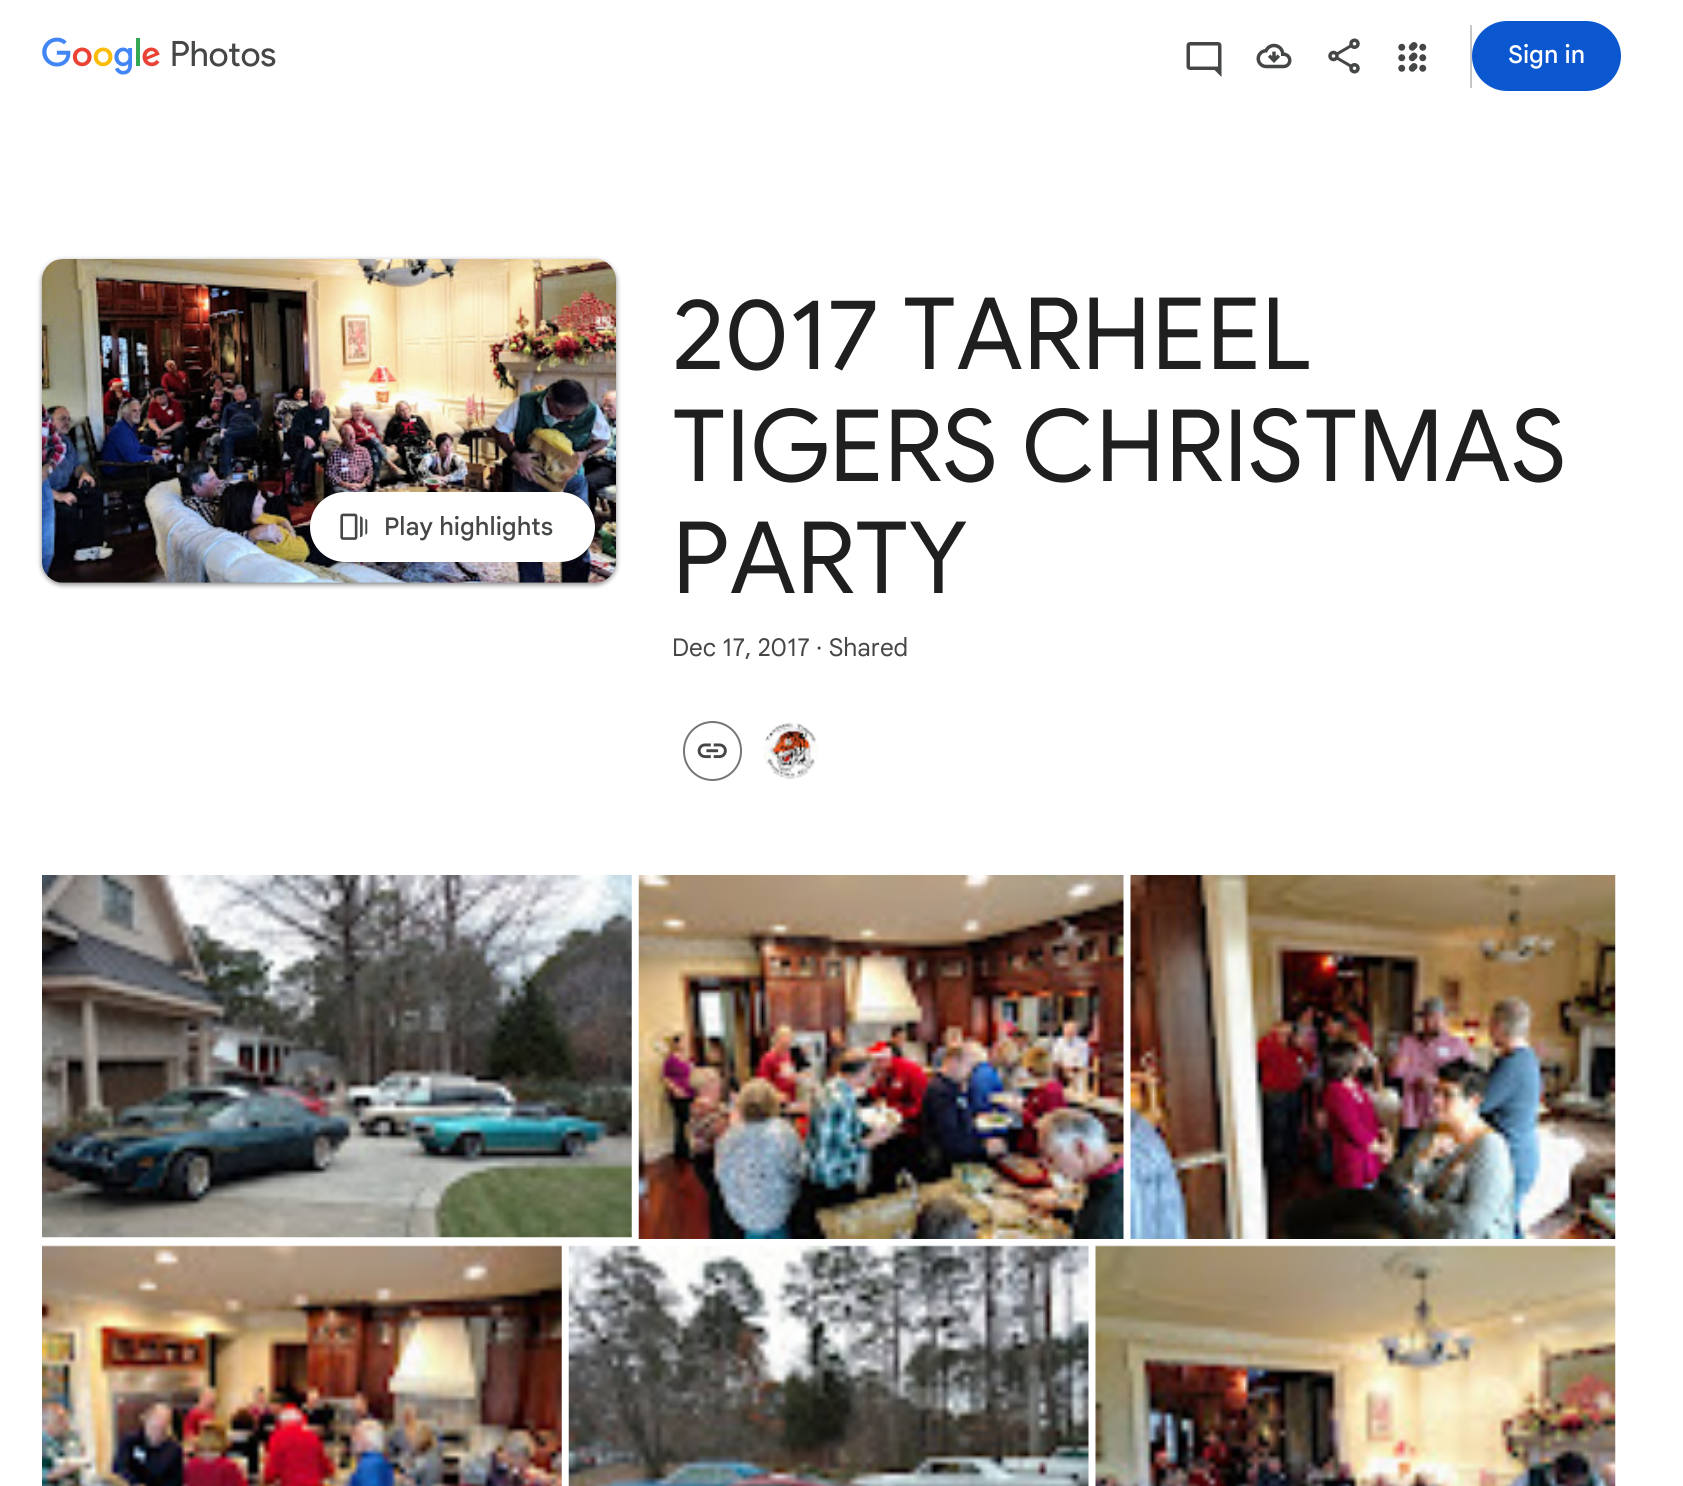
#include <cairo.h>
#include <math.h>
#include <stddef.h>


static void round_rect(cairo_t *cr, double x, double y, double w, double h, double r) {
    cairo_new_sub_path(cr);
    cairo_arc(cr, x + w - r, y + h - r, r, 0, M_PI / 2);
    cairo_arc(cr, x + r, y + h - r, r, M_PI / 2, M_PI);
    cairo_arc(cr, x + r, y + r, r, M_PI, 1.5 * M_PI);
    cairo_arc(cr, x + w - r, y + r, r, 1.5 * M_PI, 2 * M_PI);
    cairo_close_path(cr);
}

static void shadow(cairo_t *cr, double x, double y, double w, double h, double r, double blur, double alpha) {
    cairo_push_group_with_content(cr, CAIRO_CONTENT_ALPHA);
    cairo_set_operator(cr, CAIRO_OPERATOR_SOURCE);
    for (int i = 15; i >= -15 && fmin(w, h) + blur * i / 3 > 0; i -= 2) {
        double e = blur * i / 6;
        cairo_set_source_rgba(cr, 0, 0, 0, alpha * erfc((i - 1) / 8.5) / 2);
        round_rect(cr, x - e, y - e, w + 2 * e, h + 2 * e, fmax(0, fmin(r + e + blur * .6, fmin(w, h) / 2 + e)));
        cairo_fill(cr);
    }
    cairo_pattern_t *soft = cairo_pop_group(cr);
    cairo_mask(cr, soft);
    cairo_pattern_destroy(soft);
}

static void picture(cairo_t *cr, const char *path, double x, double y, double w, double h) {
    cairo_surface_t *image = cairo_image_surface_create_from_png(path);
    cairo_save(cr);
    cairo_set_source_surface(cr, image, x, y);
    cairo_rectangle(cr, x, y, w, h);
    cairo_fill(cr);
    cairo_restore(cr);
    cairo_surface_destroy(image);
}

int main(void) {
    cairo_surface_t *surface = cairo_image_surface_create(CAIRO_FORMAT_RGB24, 1683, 1486);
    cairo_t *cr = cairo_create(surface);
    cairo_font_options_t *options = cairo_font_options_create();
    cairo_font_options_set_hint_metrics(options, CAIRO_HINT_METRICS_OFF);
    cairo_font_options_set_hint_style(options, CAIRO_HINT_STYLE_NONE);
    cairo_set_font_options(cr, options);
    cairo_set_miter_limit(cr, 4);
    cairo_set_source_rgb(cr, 1, 1, 1);
    cairo_paint(cr);
    picture(cr, "img1.png", 42, 37, 118, 38);
    cairo_select_font_face(cr, "Product Sans", CAIRO_FONT_SLANT_NORMAL, CAIRO_FONT_WEIGHT_NORMAL);
    cairo_set_font_size(cr, 35);
    cairo_set_source_rgb(cr, 0.267, 0.278, 0.275);
    cairo_move_to(cr, 170, 66);
    cairo_show_text(cr, "Photos");
    picture(cr, "img2.png", 1186, 42, 36, 35);
    picture(cr, "img3.png", 1256, 43, 36, 26);
    picture(cr, "img4.png", 1328, 38, 32, 36);
    picture(cr, "img5.png", 1410, 42, 8, 28);
    cairo_set_source_rgb(cr, 0.769, 0.78, 0.773);
    cairo_rectangle(cr, 1470, 25, 2, 63);
    cairo_fill(cr);
    cairo_set_source_rgb(cr, 0.973, 0.98, 0.992);
    round_rect(cr, 42, 259, 574, 324, 21);
    cairo_fill(cr);
    cairo_set_source_rgb(cr, 0, 0, 0);
    shadow(cr, 40, 259, 578, 327, 23, 2.5, 0.15);
    shadow(cr, 42, 261, 574, 324, 21, 2, 0.3);
    picture(cr, "img6.png", 42, 259, 574, 324);
    cairo_set_source_rgb(cr, 1, 1, 1);
    round_rect(cr, 310, 492, 285, 70, 35);
    cairo_fill(cr);
    picture(cr, "img7.png", 340, 513, 28, 27);
    cairo_select_font_face(cr, "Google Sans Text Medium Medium", CAIRO_FONT_SLANT_NORMAL, CAIRO_FONT_WEIGHT_NORMAL);
    cairo_set_font_size(cr, 24.5);
    cairo_set_source_rgb(cr, 0.267, 0.278, 0.275);
    cairo_move_to(cr, 384, 535);
    cairo_show_text(cr, "Play highlights");
    cairo_select_font_face(cr, "Google Sans", CAIRO_FONT_SLANT_NORMAL, CAIRO_FONT_WEIGHT_NORMAL);
    cairo_set_font_size(cr, 99.75);
    cairo_set_source_rgb(cr, 0.122, 0.122, 0.122);
    cairo_move_to(cr, 672, 369);
    cairo_show_text(cr, "2017 TARHEEL");
    cairo_move_to(cr, 672, 481);
    cairo_show_text(cr, "TIGERS CHRISTMAS");
    cairo_move_to(cr, 672, 593);
    cairo_show_text(cr, "PARTY");
    cairo_select_font_face(cr, "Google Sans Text", CAIRO_FONT_SLANT_NORMAL, CAIRO_FONT_WEIGHT_NORMAL);
    cairo_set_font_size(cr, 24.5);
    cairo_set_source_rgb(cr, 0.267, 0.278, 0.275);
    cairo_move_to(cr, 672, 656);
    cairo_show_text(cr, "Dec 17, 2017 · Shared");
    round_rect(cr, 684, 722, 57, 58, 28.5);
    cairo_set_source_rgb(cr, 0.455, 0.467, 0.459);
    cairo_stroke(cr);
    picture(cr, "img8.png", 697, 743, 30, 16);
    picture(cr, "img9.png", 763, 722, 56, 57);
    picture(cr, "img10.png", 42, 875, 590, 363);
    picture(cr, "img11.png", 638, 875, 486, 364);
    picture(cr, "img12.png", 1130, 875, 486, 364);
    picture(cr, "img13.png", 42, 1245, 520, 241);
    picture(cr, "img14.png", 568, 1245, 521, 241);
    picture(cr, "img15.png", 1095, 1245, 521, 241);
    picture(cr, "img16.png", 1398, 43, 29, 29);
    cairo_set_source_rgb(cr, 0.043, 0.341, 0.816);
    round_rect(cr, 1472, 21, 149, 70, 35);
    cairo_fill(cr);
    cairo_select_font_face(cr, "Google Sans Text Medium Medium", CAIRO_FONT_SLANT_NORMAL, CAIRO_FONT_WEIGHT_NORMAL);
    cairo_set_source_rgb(cr, 1, 1, 1);
    cairo_move_to(cr, 1508, 63);
    cairo_show_text(cr, "Sign in");
    cairo_surface_write_to_png(surface, "page.png");
    cairo_font_options_destroy(options);
    cairo_destroy(cr);
    cairo_surface_destroy(surface);
    return 0;
}
